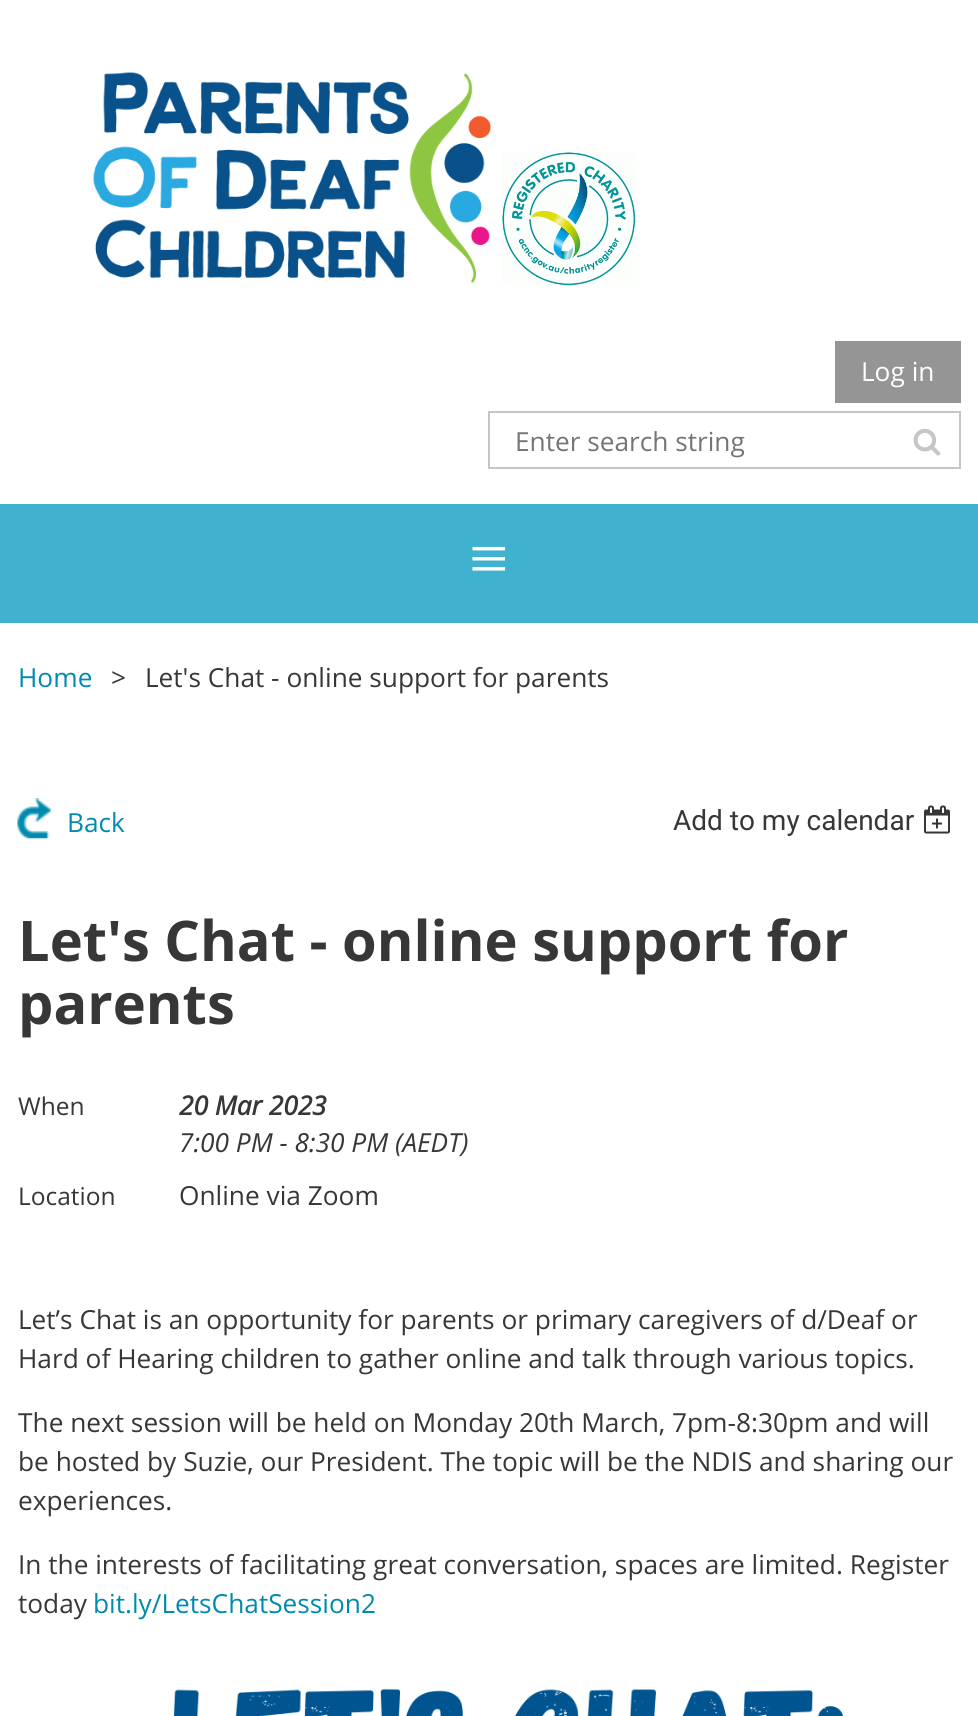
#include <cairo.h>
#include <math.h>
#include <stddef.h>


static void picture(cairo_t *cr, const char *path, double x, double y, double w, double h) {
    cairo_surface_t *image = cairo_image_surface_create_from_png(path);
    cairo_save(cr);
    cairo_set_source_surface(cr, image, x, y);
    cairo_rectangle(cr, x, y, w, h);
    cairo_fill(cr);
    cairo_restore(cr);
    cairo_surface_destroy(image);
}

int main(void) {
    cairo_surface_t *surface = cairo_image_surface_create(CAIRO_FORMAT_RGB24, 978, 1716);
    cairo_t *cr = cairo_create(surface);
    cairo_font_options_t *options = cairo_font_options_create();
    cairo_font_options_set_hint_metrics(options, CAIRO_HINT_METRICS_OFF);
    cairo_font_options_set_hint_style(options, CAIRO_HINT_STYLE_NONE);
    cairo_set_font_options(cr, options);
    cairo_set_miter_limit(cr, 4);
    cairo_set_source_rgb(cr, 1, 1, 1);
    cairo_paint(cr);
    picture(cr, "img1.png", 93, 72, 398, 211);
    picture(cr, "img2.png", 502, 152, 134, 134);
    cairo_set_source_rgb(cr, 0.584, 0.584, 0.584);
    cairo_rectangle(cr, 835, 341, 126, 62);
    cairo_fill(cr);
    cairo_select_font_face(cr, "Open Sans", CAIRO_FONT_SLANT_NORMAL, CAIRO_FONT_WEIGHT_NORMAL);
    cairo_set_font_size(cr, 26.25);
    cairo_set_source_rgb(cr, 1, 1, 1);
    cairo_move_to(cr, 861, 381);
    cairo_show_text(cr, "Log in");
    cairo_rectangle(cr, 489, 412, 471, 56);
    cairo_set_source_rgb(cr, 0.776, 0.776, 0.776);
    cairo_stroke(cr);
    cairo_set_source_rgb(cr, 0.459, 0.459, 0.459);
    cairo_move_to(cr, 515, 451);
    cairo_show_text(cr, "Enter search string");
    picture(cr, "img3.png", 913, 428, 28, 28);
    cairo_set_source_rgb(cr, 0.251, 0.698, 0.812);
    cairo_rectangle(cr, 0, 504, 978, 119);
    cairo_fill(cr);
    cairo_select_font_face(cr, "Liberation Serif", CAIRO_FONT_SLANT_NORMAL, CAIRO_FONT_WEIGHT_NORMAL);
    cairo_set_font_size(cr, 70);
    cairo_set_source_rgb(cr, 1, 1, 1);
    cairo_move_to(cr, 469, 582);
    cairo_show_text(cr, "≡");
    cairo_select_font_face(cr, "Open Sans", CAIRO_FONT_SLANT_NORMAL, CAIRO_FONT_WEIGHT_NORMAL);
    cairo_set_font_size(cr, 26.25);
    cairo_set_source_rgb(cr, 0, 0.545, 0.682);
    cairo_move_to(cr, 18, 687);
    cairo_show_text(cr, "Home");
    cairo_set_source_rgb(cr, 0.216, 0.216, 0.216);
    cairo_move_to(cr, 111, 687);
    cairo_show_text(cr, ">");
    cairo_move_to(cr, 145, 687);
    cairo_show_text(cr, "Let's Chat - online support for parents");
    picture(cr, "img4.png", 17, 798, 34, 41);
    cairo_set_source_rgb(cr, 0, 0.545, 0.682);
    cairo_move_to(cr, 67, 832);
    cairo_show_text(cr, "Back");
    cairo_select_font_face(cr, "Roboto", CAIRO_FONT_SLANT_NORMAL, CAIRO_FONT_WEIGHT_NORMAL);
    cairo_set_font_size(cr, 28);
    cairo_set_source_rgb(cr, 0.216, 0.216, 0.216);
    cairo_move_to(cr, 673, 830);
    cairo_show_text(cr, "Add to my calendar");
    picture(cr, "img5.png", 924, 805, 26, 29);
    cairo_select_font_face(cr, "Open Sans", CAIRO_FONT_SLANT_NORMAL, CAIRO_FONT_WEIGHT_BOLD);
    cairo_set_font_size(cr, 56);
    cairo_move_to(cr, 18, 961);
    cairo_show_text(cr, "Let's Chat - online support for");
    cairo_move_to(cr, 18, 1024);
    cairo_show_text(cr, "parents");
    cairo_select_font_face(cr, "Open Sans", CAIRO_FONT_SLANT_NORMAL, CAIRO_FONT_WEIGHT_NORMAL);
    cairo_set_font_size(cr, 24.5);
    cairo_move_to(cr, 18, 1115);
    cairo_show_text(cr, "When");
    cairo_select_font_face(cr, "Open Sans", CAIRO_FONT_SLANT_ITALIC, CAIRO_FONT_WEIGHT_BOLD);
    cairo_set_font_size(cr, 26.25);
    cairo_move_to(cr, 179, 1115);
    cairo_show_text(cr, "20 Mar 2023");
    cairo_select_font_face(cr, "Open Sans", CAIRO_FONT_SLANT_ITALIC, CAIRO_FONT_WEIGHT_NORMAL);
    cairo_move_to(cr, 179, 1152);
    cairo_show_text(cr, "7:00 PM - 8:30 PM (AEDT)");
    cairo_select_font_face(cr, "Open Sans", CAIRO_FONT_SLANT_NORMAL, CAIRO_FONT_WEIGHT_NORMAL);
    cairo_set_font_size(cr, 24.5);
    cairo_move_to(cr, 18, 1205);
    cairo_show_text(cr, "Location");
    cairo_set_font_size(cr, 26.25);
    cairo_move_to(cr, 179, 1205);
    cairo_show_text(cr, "Online via Zoom");
    cairo_move_to(cr, 18, 1329);
    cairo_show_text(cr, "Let’s Chat is an opportunity for parents or primary caregivers of d/Deaf or");
    cairo_move_to(cr, 18, 1368);
    cairo_show_text(cr, "Hard of Hearing children to gather online and talk through various topics.");
    cairo_move_to(cr, 18, 1432);
    cairo_show_text(cr, "The next session will be held on Monday 20th March, 7pm-8:30pm and will");
    cairo_move_to(cr, 18, 1471);
    cairo_show_text(cr, "be hosted by Suzie, our President. The topic will be the NDIS and sharing our");
    cairo_move_to(cr, 18, 1510);
    cairo_show_text(cr, "experiences.");
    cairo_move_to(cr, 18, 1574);
    cairo_show_text(cr, "In the interests of facilitating great conversation, spaces are limited. Register");
    cairo_move_to(cr, 18, 1613);
    cairo_show_text(cr, "today");
    cairo_set_source_rgb(cr, 0, 0.545, 0.682);
    cairo_move_to(cr, 93, 1613);
    cairo_show_text(cr, "bit.ly/LetsChatSession2");
    picture(cr, "img6.png", 173, 1688, 670, 28);
    cairo_surface_write_to_png(surface, "page.png");
    cairo_font_options_destroy(options);
    cairo_destroy(cr);
    cairo_surface_destroy(surface);
    return 0;
}
